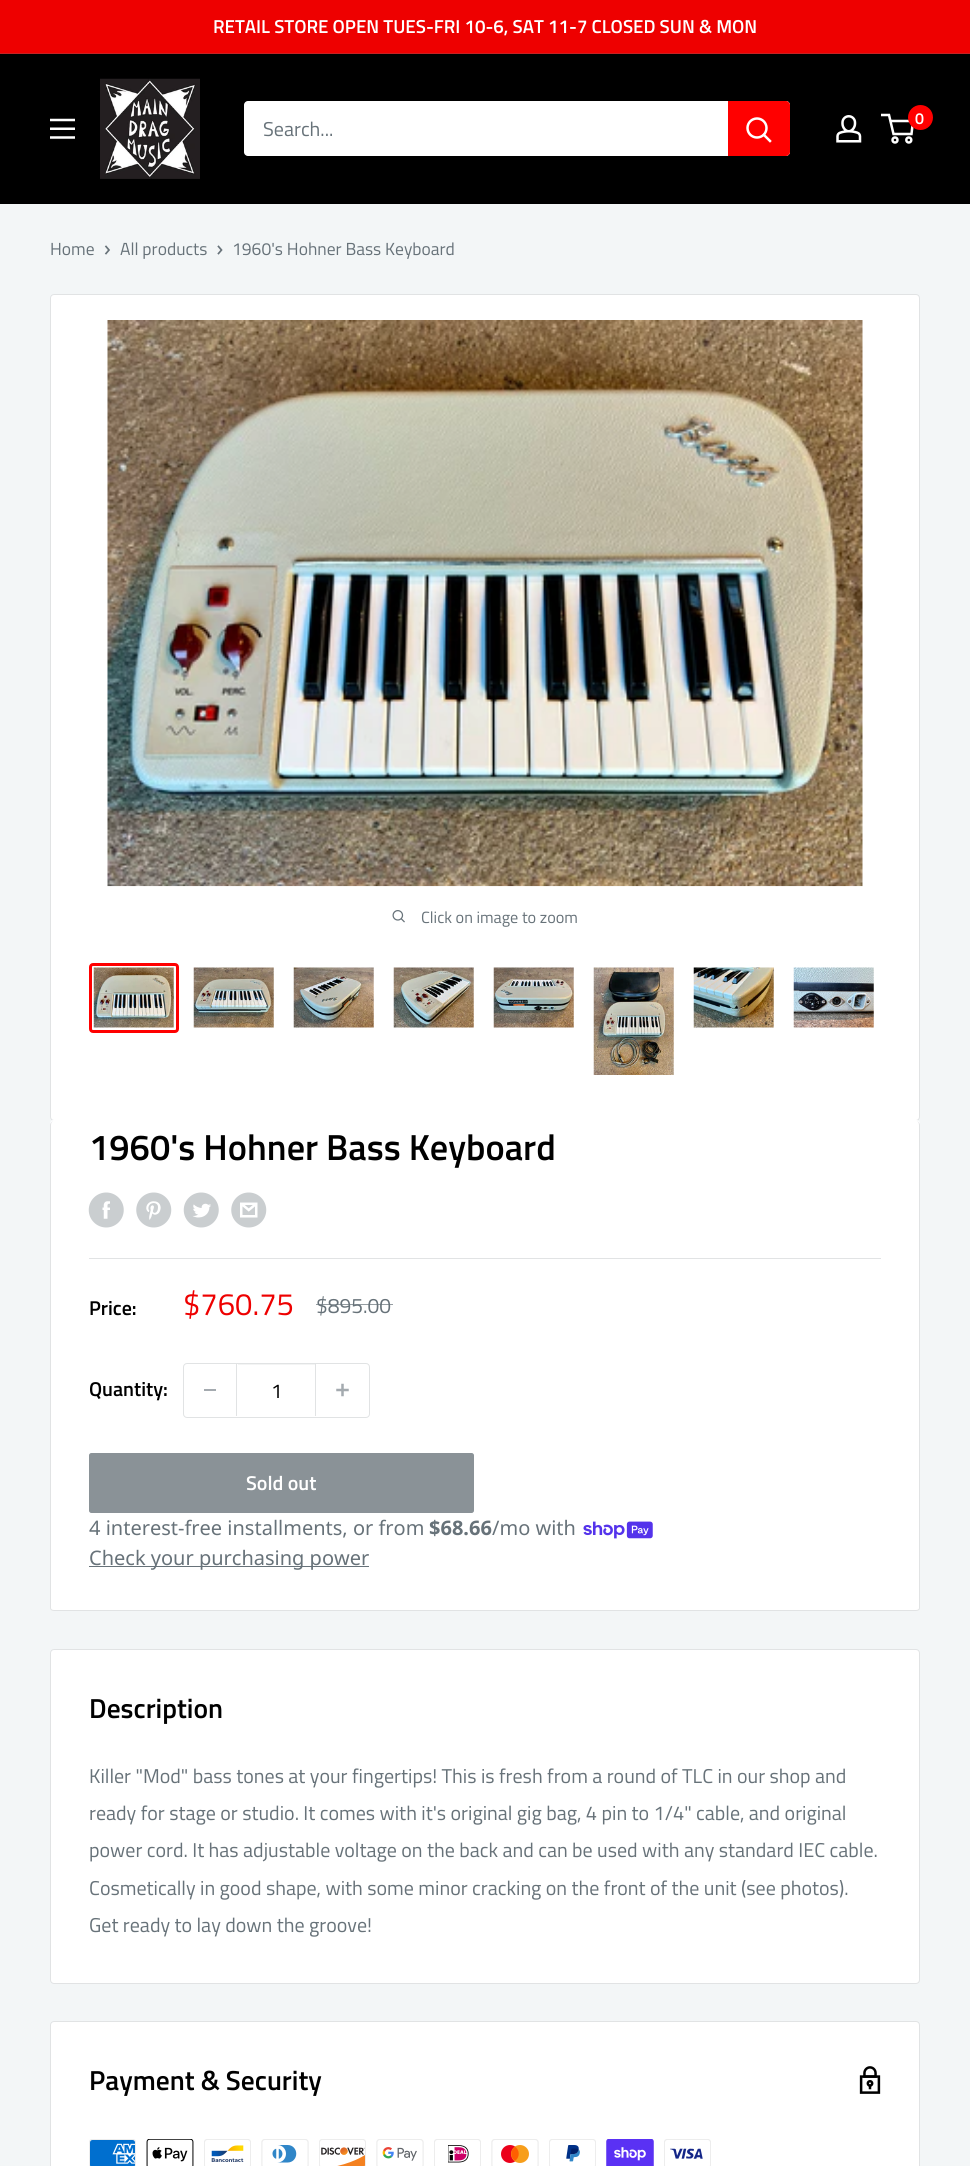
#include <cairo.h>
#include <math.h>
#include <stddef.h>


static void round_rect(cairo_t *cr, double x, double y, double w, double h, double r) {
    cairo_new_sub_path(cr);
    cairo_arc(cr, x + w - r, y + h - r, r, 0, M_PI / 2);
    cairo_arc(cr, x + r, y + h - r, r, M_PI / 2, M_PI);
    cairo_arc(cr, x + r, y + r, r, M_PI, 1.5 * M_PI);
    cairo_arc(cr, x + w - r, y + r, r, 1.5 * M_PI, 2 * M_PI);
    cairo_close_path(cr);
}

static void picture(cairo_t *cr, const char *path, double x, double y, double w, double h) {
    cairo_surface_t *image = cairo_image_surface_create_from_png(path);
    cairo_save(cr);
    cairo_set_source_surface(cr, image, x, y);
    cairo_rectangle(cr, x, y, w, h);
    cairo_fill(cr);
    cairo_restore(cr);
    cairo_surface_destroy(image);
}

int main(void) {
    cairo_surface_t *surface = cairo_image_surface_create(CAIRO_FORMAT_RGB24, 970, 2166);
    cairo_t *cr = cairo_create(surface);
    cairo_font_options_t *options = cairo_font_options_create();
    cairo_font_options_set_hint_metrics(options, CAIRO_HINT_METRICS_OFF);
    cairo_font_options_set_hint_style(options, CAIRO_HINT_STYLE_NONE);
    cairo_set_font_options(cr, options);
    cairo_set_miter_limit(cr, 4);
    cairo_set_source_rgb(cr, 0.953, 0.961, 0.965);
    cairo_paint(cr);
    cairo_set_source_rgb(cr, 0.933, 0, 0);
    cairo_rectangle(cr, 0, 0, 970, 53);
    cairo_fill(cr);
    cairo_set_source_rgb(cr, 0.773, 0.133, 0.141);
    cairo_rectangle(cr, 0, 53, 970, 1);
    cairo_fill(cr);
    cairo_select_font_face(cr, "Titillium Web SemiBold", CAIRO_FONT_SLANT_NORMAL, CAIRO_FONT_WEIGHT_NORMAL);
    cairo_set_font_size(cr, 18.75);
    cairo_set_source_rgb(cr, 1, 1, 1);
    cairo_move_to(cr, 213, 33);
    cairo_show_text(cr, "RETAIL STORE OPEN TUES-FRI 10-6, SAT 11-7 CLOSED SUN & MON");
    cairo_set_source_rgb(cr, 0, 0, 0);
    cairo_rectangle(cr, 0, 54, 970, 150);
    cairo_fill(cr);
    picture(cr, "img1.png", 50, 118, 25, 21);
    picture(cr, "img2.png", 100, 78, 100, 101);
    cairo_set_source_rgb(cr, 1, 1, 1);
    round_rect(cr, 244, 101, 546, 55, 4);
    cairo_fill(cr);
    cairo_select_font_face(cr, "Titillium Web", CAIRO_FONT_SLANT_NORMAL, CAIRO_FONT_WEIGHT_NORMAL);
    cairo_set_font_size(cr, 20);
    cairo_set_source_rgb(cr, 0.404, 0.447, 0.475);
    cairo_move_to(cr, 263, 136);
    cairo_show_text(cr, "Search...");
    cairo_set_source_rgb(cr, 1, 0, 0);
    cairo_new_path(cr);
    cairo_move_to(cr, 728, 101);
    cairo_line_to(cr, 786, 101);
    cairo_curve_to(cr, 788, 101, 790, 103, 790, 105);
    cairo_line_to(cr, 790, 152);
    cairo_curve_to(cr, 790, 154, 788, 156, 786, 156);
    cairo_line_to(cr, 728, 156);
    cairo_close_path(cr);
    cairo_fill(cr);
    cairo_new_path(cr);
    cairo_move_to(cr, 770, 141);
    cairo_line_to(cr, 764, 135);
    cairo_set_source_rgb(cr, 1, 1, 1);
    cairo_set_line_width(cr, 2.5);
    cairo_set_line_cap(cr, CAIRO_LINE_CAP_SQUARE);
    cairo_stroke(cr);
    cairo_arc(cr, 757, 128, 9.5, 0, 2 * M_PI);
    cairo_set_line_cap(cr, CAIRO_LINE_CAP_BUTT);
    cairo_stroke(cr);
    picture(cr, "img3.png", 836, 115, 26, 28);
    cairo_arc(cr, 895, 140, 2.5, 0, 2 * M_PI);
    cairo_stroke(cr);
    cairo_arc(cr, 908.8, 140, 2.5, 0, 2 * M_PI);
    cairo_stroke(cr);
    cairo_new_path(cr);
    cairo_move_to(cr, 890.5, 121);
    cairo_line_to(cr, 913, 121);
    cairo_line_to(cr, 911.5, 134);
    cairo_line_to(cr, 893.5, 134);
    cairo_line_to(cr, 889, 115);
    cairo_line_to(cr, 881, 115);
    cairo_stroke(cr);
    cairo_set_source_rgb(cr, 1, 0, 0);
    cairo_arc(cr, 920.5, 117.5, 12.5, 0, 2 * M_PI);
    cairo_fill(cr);
    cairo_select_font_face(cr, "Titillium Web SemiBold", CAIRO_FONT_SLANT_NORMAL, CAIRO_FONT_WEIGHT_NORMAL);
    cairo_set_font_size(cr, 16);
    cairo_set_source_rgb(cr, 1, 1, 1);
    cairo_move_to(cr, 915, 124);
    cairo_show_text(cr, "0");
    cairo_select_font_face(cr, "Titillium Web", CAIRO_FONT_SLANT_NORMAL, CAIRO_FONT_WEIGHT_NORMAL);
    cairo_set_font_size(cr, 17.5);
    cairo_set_source_rgb(cr, 0.404, 0.447, 0.475);
    cairo_move_to(cr, 50, 255);
    cairo_show_text(cr, "Home");
    cairo_new_path(cr);
    cairo_move_to(cr, 106, 246.5);
    cairo_line_to(cr, 109, 250);
    cairo_line_to(cr, 106, 253.5);
    cairo_set_line_width(cr, 1.7);
    cairo_set_line_cap(cr, CAIRO_LINE_CAP_SQUARE);
    cairo_stroke(cr);
    cairo_move_to(cr, 120, 255);
    cairo_show_text(cr, "All products");
    cairo_new_path(cr);
    cairo_move_to(cr, 218.5, 246.5);
    cairo_line_to(cr, 221.5, 250);
    cairo_line_to(cr, 218.5, 253.5);
    cairo_stroke(cr);
    cairo_move_to(cr, 232, 255);
    cairo_show_text(cr, "1960's Hohner Bass Keyboard");
    cairo_set_source_rgb(cr, 1, 1, 1);
    round_rect(cr, 50.5, 294.5, 869, 826, 3.5);
    cairo_fill_preserve(cr);
    cairo_set_source_rgb(cr, 0.882, 0.89, 0.894);
    cairo_set_line_width(cr, 1);
    cairo_set_line_cap(cr, CAIRO_LINE_CAP_BUTT);
    cairo_stroke(cr);
    picture(cr, "img4.png", 107, 320, 756, 567);
    picture(cr, "img5.png", 392, 910, 13, 13);
    cairo_set_font_size(cr, 16.25);
    cairo_set_source_rgb(cr, 0.404, 0.447, 0.475);
    cairo_move_to(cr, 421, 923);
    cairo_show_text(cr, "Click on image to zoom");
    round_rect(cr, 90.5, 964.5, 87, 67, 2.5);
    cairo_set_source_rgb(cr, 1, 0, 0);
    cairo_set_line_width(cr, 3);
    cairo_stroke(cr);
    picture(cr, "img6.png", 93, 967, 81, 61);
    picture(cr, "img7.png", 193, 967, 81, 61);
    picture(cr, "img8.png", 293, 967, 81, 61);
    picture(cr, "img9.png", 393, 967, 81, 61);
    picture(cr, "img10.png", 493, 967, 81, 61);
    picture(cr, "img11.png", 593, 967, 81, 108);
    picture(cr, "img12.png", 693, 967, 81, 61);
    picture(cr, "img13.png", 793, 967, 81, 61);
    cairo_set_source_rgb(cr, 1, 1, 1);
    cairo_new_path(cr);
    cairo_move_to(cr, 54, 1120);
    cairo_curve_to(cr, 51, 1120, 50, 1122, 50, 1125);
    cairo_curve_to(cr, 50, 1123, 52, 1121, 54, 1121);
    cairo_line_to(cr, 916, 1121);
    cairo_curve_to(cr, 918, 1121, 920, 1123, 920, 1125);
    cairo_curve_to(cr, 920, 1122, 919, 1120, 916, 1120);
    cairo_close_path(cr);
    cairo_fill(cr);
    round_rect(cr, 50, 1121, 870, 490, 4);
    cairo_fill(cr);
    cairo_set_source_rgb(cr, 0.882, 0.89, 0.894);
    cairo_set_fill_rule(cr, CAIRO_FILL_RULE_EVEN_ODD);
    cairo_new_path(cr);
    cairo_move_to(cr, 54, 1121);
    cairo_line_to(cr, 916, 1121);
    cairo_curve_to(cr, 918, 1121, 920, 1123, 920, 1125);
    cairo_line_to(cr, 920, 1608);
    cairo_curve_to(cr, 920, 1610, 918, 1611, 916, 1611);
    cairo_line_to(cr, 54, 1611);
    cairo_curve_to(cr, 52, 1611, 50, 1610, 50, 1608);
    cairo_line_to(cr, 50, 1125);
    cairo_curve_to(cr, 50, 1123, 52, 1121, 54, 1121);
    cairo_close_path(cr);
    cairo_move_to(cr, 54, 1121);
    cairo_line_to(cr, 916, 1121);
    cairo_curve_to(cr, 918, 1121, 919, 1123, 919, 1125);
    cairo_line_to(cr, 919, 1608);
    cairo_curve_to(cr, 919, 1609, 918, 1610, 916, 1610);
    cairo_line_to(cr, 54, 1610);
    cairo_curve_to(cr, 52, 1610, 51, 1609, 51, 1608);
    cairo_line_to(cr, 51, 1125);
    cairo_curve_to(cr, 51, 1123, 52, 1121, 54, 1121);
    cairo_close_path(cr);
    cairo_fill(cr);
    cairo_select_font_face(cr, "Titillium Web SemiBold", CAIRO_FONT_SLANT_NORMAL, CAIRO_FONT_WEIGHT_NORMAL);
    cairo_set_font_size(cr, 36.25);
    cairo_set_source_rgb(cr, 0, 0, 0);
    cairo_move_to(cr, 89, 1160);
    cairo_show_text(cr, "1960's Hohner Bass Keyboard");
    picture(cr, "img14.png", 88, 1192, 36, 36);
    picture(cr, "img15.png", 136, 1192, 36, 36);
    picture(cr, "img16.png", 183, 1192, 36, 36);
    picture(cr, "img17.png", 231, 1192, 36, 36);
    cairo_set_source_rgb(cr, 0.882, 0.89, 0.894);
    cairo_rectangle(cr, 89, 1258, 792, 1);
    cairo_fill(cr);
    cairo_set_font_size(cr, 20);
    cairo_set_source_rgb(cr, 0, 0, 0);
    cairo_move_to(cr, 89, 1315);
    cairo_show_text(cr, "Price:");
    cairo_select_font_face(cr, "Titillium Web", CAIRO_FONT_SLANT_NORMAL, CAIRO_FONT_WEIGHT_NORMAL);
    cairo_set_font_size(cr, 31);
    cairo_set_source_rgb(cr, 0.933, 0, 0);
    cairo_move_to(cr, 183, 1315);
    cairo_show_text(cr, "$760.75");
    cairo_set_font_size(cr, 21);
    cairo_set_source_rgb(cr, 0.404, 0.447, 0.475);
    cairo_move_to(cr, 316, 1313);
    cairo_show_text(cr, "$895.00");
    cairo_set_source_rgba(cr, 0.404, 0.447, 0.475, 0.7);
    cairo_rectangle(cr, 316, 1304, 77, 1);
    cairo_fill(cr);
    cairo_select_font_face(cr, "Titillium Web SemiBold", CAIRO_FONT_SLANT_NORMAL, CAIRO_FONT_WEIGHT_NORMAL);
    cairo_set_font_size(cr, 20);
    cairo_set_source_rgb(cr, 0, 0, 0);
    cairo_move_to(cr, 89, 1396);
    cairo_show_text(cr, "Quantity:");
    round_rect(cr, 183.5, 1363.5, 186, 54, 3.5);
    cairo_set_source_rgb(cr, 0.882, 0.89, 0.894);
    cairo_set_line_width(cr, 1);
    cairo_stroke(cr);
    cairo_set_source_rgb(cr, 0.643, 0.667, 0.686);
    cairo_rectangle(cr, 204, 1389, 12, 2);
    cairo_fill(cr);
    cairo_set_source_rgb(cr, 0.953, 0.957, 0.957);
    cairo_rectangle(cr, 238, 1364, 77, 1);
    cairo_fill(cr);
    cairo_set_source_rgb(cr, 0.882, 0.89, 0.894);
    cairo_rectangle(cr, 315, 1364, 1, 52);
    cairo_fill(cr);
    cairo_rectangle(cr, 236, 1364, 1, 52);
    cairo_fill(cr);
    cairo_select_font_face(cr, "Titillium Web", CAIRO_FONT_SLANT_NORMAL, CAIRO_FONT_WEIGHT_NORMAL);
    cairo_set_source_rgb(cr, 0, 0, 0);
    cairo_move_to(cr, 271, 1398);
    cairo_show_text(cr, "1");
    picture(cr, "img18.png", 336, 1383, 13, 14);
    cairo_set_source_rgb(cr, 0.541, 0.573, 0.592);
    round_rect(cr, 89.5, 1453.5, 384, 59, 2);
    cairo_fill_preserve(cr);
    cairo_stroke(cr);
    cairo_select_font_face(cr, "Titillium Web SemiBold", CAIRO_FONT_SLANT_NORMAL, CAIRO_FONT_WEIGHT_NORMAL);
    cairo_set_source_rgb(cr, 1, 1, 1);
    cairo_move_to(cr, 246, 1490);
    cairo_show_text(cr, "Sold out");
    cairo_select_font_face(cr, "Noto Sans", CAIRO_FONT_SLANT_NORMAL, CAIRO_FONT_WEIGHT_NORMAL);
    cairo_set_source_rgb(cr, 0.404, 0.447, 0.475);
    cairo_move_to(cr, 89, 1535);
    cairo_show_text(cr, "4 interest-free installments, or from");
    cairo_select_font_face(cr, "Noto Sans", CAIRO_FONT_SLANT_NORMAL, CAIRO_FONT_WEIGHT_BOLD);
    cairo_move_to(cr, 429, 1535);
    cairo_show_text(cr, "$68.66");
    cairo_select_font_face(cr, "Noto Sans", CAIRO_FONT_SLANT_NORMAL, CAIRO_FONT_WEIGHT_NORMAL);
    cairo_move_to(cr, 492, 1535);
    cairo_show_text(cr, "/mo with");
    picture(cr, "img19.png", 583, 1521, 70, 18);
    cairo_rectangle(cr, 89, 1566, 280, 1);
    cairo_fill(cr);
    cairo_move_to(cr, 89, 1565);
    cairo_show_text(cr, "Check your purchasing power");
    cairo_set_source_rgb(cr, 1, 1, 1);
    round_rect(cr, 50.5, 1649.5, 869, 334, 3.5);
    cairo_fill_preserve(cr);
    cairo_set_source_rgb(cr, 0.882, 0.89, 0.894);
    cairo_stroke(cr);
    cairo_select_font_face(cr, "Titillium Web SemiBold", CAIRO_FONT_SLANT_NORMAL, CAIRO_FONT_WEIGHT_NORMAL);
    cairo_set_font_size(cr, 27.5);
    cairo_set_source_rgb(cr, 0, 0, 0);
    cairo_move_to(cr, 89, 1718);
    cairo_show_text(cr, "Description");
    cairo_select_font_face(cr, "Titillium Web", CAIRO_FONT_SLANT_NORMAL, CAIRO_FONT_WEIGHT_NORMAL);
    cairo_set_font_size(cr, 20);
    cairo_set_source_rgb(cr, 0.404, 0.447, 0.475);
    cairo_move_to(cr, 89, 1783);
    cairo_show_text(cr, "Killer \"Mod\" bass tones at your fingertips! This is fresh from a round of TLC in our shop and");
    cairo_move_to(cr, 89, 1820);
    cairo_show_text(cr, "ready for stage or studio. It comes with it's original gig bag, 4 pin to 1/4\" cable, and original");
    cairo_move_to(cr, 89, 1857);
    cairo_show_text(cr, "power cord. It has adjustable voltage on the back and can be used with any standard IEC cable.");
    cairo_move_to(cr, 89, 1895);
    cairo_show_text(cr, "Cosmetically in good shape, with some minor cracking on the front of the unit (see photos).");
    cairo_move_to(cr, 89, 1932);
    cairo_show_text(cr, "Get ready to lay down the groove!");
    cairo_set_source_rgb(cr, 1, 1, 1);
    round_rect(cr, 50.5, 2021.5, 869, 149, 3.5);
    cairo_fill_preserve(cr);
    cairo_set_source_rgb(cr, 0.882, 0.89, 0.894);
    cairo_stroke(cr);
    cairo_select_font_face(cr, "Titillium Web SemiBold", CAIRO_FONT_SLANT_NORMAL, CAIRO_FONT_WEIGHT_NORMAL);
    cairo_set_font_size(cr, 27.5);
    cairo_set_source_rgb(cr, 0, 0, 0);
    cairo_move_to(cr, 89, 2090);
    cairo_show_text(cr, "Payment & Security");
    picture(cr, "img20.png", 859, 2066, 22, 28);
    picture(cr, "img21.png", 89, 2139, 47, 27);
    picture(cr, "img22.png", 146, 2139, 48, 27);
    picture(cr, "img23.png", 204, 2139, 47, 27);
    picture(cr, "img24.png", 261, 2139, 48, 27);
    picture(cr, "img25.png", 319, 2139, 47, 27);
    picture(cr, "img26.png", 376, 2139, 48, 27);
    picture(cr, "img27.png", 434, 2139, 47, 27);
    picture(cr, "img28.png", 491, 2139, 48, 27);
    picture(cr, "img29.png", 549, 2139, 47, 27);
    picture(cr, "img30.png", 606, 2139, 48, 27);
    picture(cr, "img31.png", 664, 2139, 47, 27);
    cairo_surface_write_to_png(surface, "page.png");
    cairo_font_options_destroy(options);
    cairo_destroy(cr);
    cairo_surface_destroy(surface);
    return 0;
}
